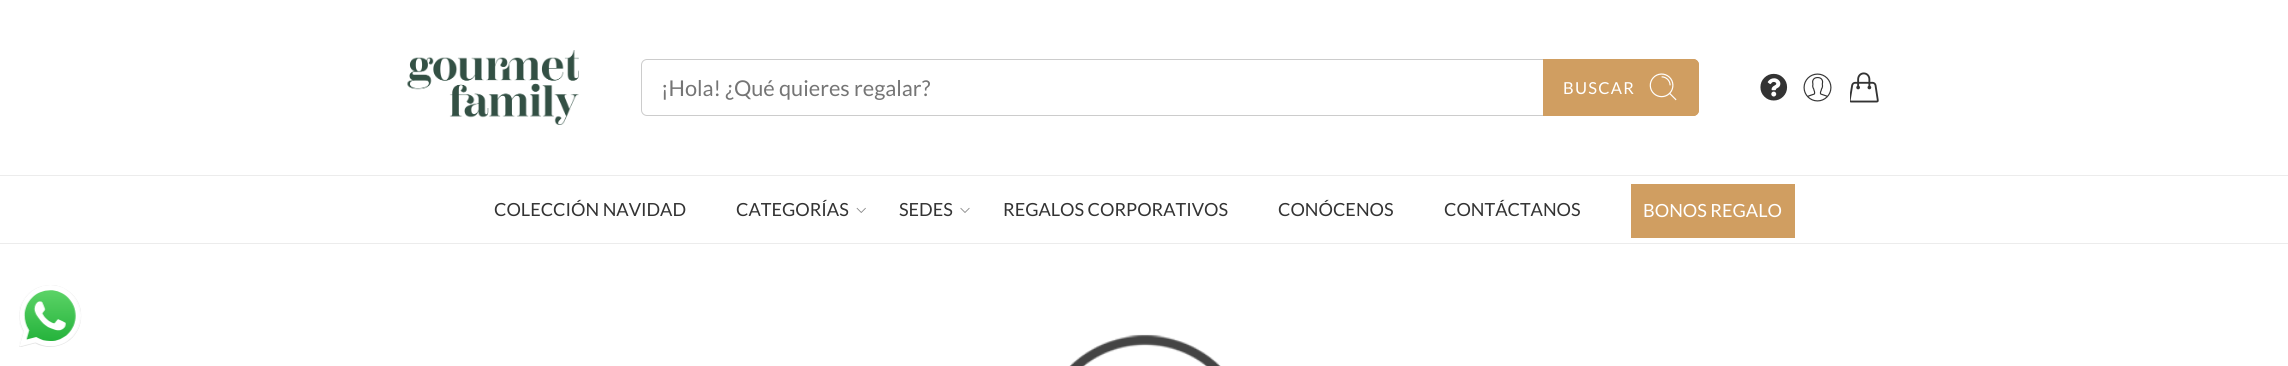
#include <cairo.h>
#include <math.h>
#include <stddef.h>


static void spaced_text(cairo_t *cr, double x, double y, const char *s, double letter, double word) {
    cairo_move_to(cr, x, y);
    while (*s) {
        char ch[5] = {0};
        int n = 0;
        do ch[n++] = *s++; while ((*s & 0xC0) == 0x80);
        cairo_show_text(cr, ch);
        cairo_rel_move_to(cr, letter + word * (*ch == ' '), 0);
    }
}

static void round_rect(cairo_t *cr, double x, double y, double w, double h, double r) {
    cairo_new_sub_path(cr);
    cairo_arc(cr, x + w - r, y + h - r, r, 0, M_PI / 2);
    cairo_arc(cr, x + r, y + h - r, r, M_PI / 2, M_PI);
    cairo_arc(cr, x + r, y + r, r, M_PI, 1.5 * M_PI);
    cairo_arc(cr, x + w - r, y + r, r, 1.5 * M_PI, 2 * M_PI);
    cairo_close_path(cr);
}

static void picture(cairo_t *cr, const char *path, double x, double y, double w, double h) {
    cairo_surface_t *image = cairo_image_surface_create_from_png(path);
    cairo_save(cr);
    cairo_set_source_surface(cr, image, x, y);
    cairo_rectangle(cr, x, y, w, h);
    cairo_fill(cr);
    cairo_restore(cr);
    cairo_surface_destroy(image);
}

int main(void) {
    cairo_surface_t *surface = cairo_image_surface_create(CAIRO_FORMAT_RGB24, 2288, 366);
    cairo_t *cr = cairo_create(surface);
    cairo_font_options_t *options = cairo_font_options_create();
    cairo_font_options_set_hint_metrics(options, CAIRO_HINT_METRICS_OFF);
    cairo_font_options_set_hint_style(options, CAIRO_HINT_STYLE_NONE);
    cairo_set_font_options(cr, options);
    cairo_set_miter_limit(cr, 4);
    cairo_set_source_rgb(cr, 1, 1, 1);
    cairo_paint(cr);
    picture(cr, "img1.png", 407, 50, 172, 75);
    round_rect(cr, 641.5, 59.5, 1056, 56, 5.5);
    cairo_set_source_rgb(cr, 0.8, 0.8, 0.8);
    cairo_set_line_width(cr, 1);
    cairo_stroke(cr);
    cairo_select_font_face(cr, "Lato", CAIRO_FONT_SLANT_NORMAL, CAIRO_FONT_WEIGHT_NORMAL);
    cairo_set_font_size(cr, 21.75);
    cairo_set_source_rgb(cr, 0.459, 0.459, 0.459);
    cairo_move_to(cr, 661, 96);
    cairo_show_text(cr, "¡Hola! ¿Qué quieres regalar?");
    cairo_save(cr);
    cairo_new_path(cr);
    cairo_move_to(cr, 1543, 59);
    cairo_line_to(cr, 1694, 59);
    cairo_curve_to(cr, 1697, 59, 1699, 61, 1699, 64);
    cairo_line_to(cr, 1699, 111);
    cairo_curve_to(cr, 1699, 114, 1697, 116, 1694, 116);
    cairo_line_to(cr, 1543, 116);
    cairo_close_path(cr);
    cairo_clip(cr);
    cairo_set_source_rgb(cr, 0.816, 0.62, 0.38);
    cairo_new_path(cr);
    cairo_move_to(cr, 1543, 59);
    cairo_line_to(cr, 1693, 59);
    cairo_curve_to(cr, 1696.5, 59, 1699, 61.5, 1699, 65);
    cairo_line_to(cr, 1699, 110);
    cairo_curve_to(cr, 1699, 113.5, 1696.5, 116, 1693, 116);
    cairo_line_to(cr, 1543, 116);
    cairo_close_path(cr);
    cairo_fill(cr);
    cairo_restore(cr);
    cairo_new_path(cr);
    cairo_move_to(cr, 1543.5, 59.5);
    cairo_line_to(cr, 1693, 59.5);
    cairo_curve_to(cr, 1696, 59.5, 1698.5, 62, 1698.5, 65);
    cairo_line_to(cr, 1698.5, 110);
    cairo_curve_to(cr, 1698.5, 113, 1696, 115.5, 1693, 115.5);
    cairo_line_to(cr, 1543.5, 115.5);
    cairo_close_path(cr);
    cairo_set_source_rgb(cr, 0.816, 0.62, 0.38);
    cairo_stroke(cr);
    cairo_set_font_size(cr, 16.5);
    cairo_set_source_rgb(cr, 1, 1, 1);
    spaced_text(cr, 1563, 94, "BUSCAR", 1.25, 0);
    picture(cr, "img2.png", 1649, 73, 28, 28);
    picture(cr, "img3.png", 1760, 73, 28, 28);
    picture(cr, "img4.png", 1803, 73, 29, 29);
    picture(cr, "img5.png", 1850, 72, 29, 31);
    cairo_set_source_rgb(cr, 0.925, 0.925, 0.925);
    cairo_rectangle(cr, 0, 175, 2288, 1);
    cairo_fill(cr);
    cairo_rectangle(cr, 0, 243, 2288, 1);
    cairo_fill(cr);
    cairo_set_font_size(cr, 18.1);
    cairo_set_source_rgb(cr, 0.2, 0.2, 0.2);
    cairo_move_to(cr, 494, 216);
    cairo_show_text(cr, "COLECCIÓN NAVIDAD");
    cairo_move_to(cr, 736, 216);
    cairo_show_text(cr, "CATEGORÍAS");
    picture(cr, "img6.png", 856, 207, 10, 6);
    cairo_move_to(cr, 899, 216);
    cairo_show_text(cr, "SEDES");
    picture(cr, "img7.png", 960, 207, 10, 6);
    cairo_move_to(cr, 1003, 216);
    cairo_show_text(cr, "REGALOS CORPORATIVOS");
    cairo_move_to(cr, 1278, 216);
    cairo_show_text(cr, "CONÓCENOS");
    cairo_move_to(cr, 1444, 216);
    cairo_show_text(cr, "CONTÁCTANOS");
    cairo_set_source_rgb(cr, 0.816, 0.62, 0.38);
    cairo_rectangle(cr, 1631, 184, 164, 54);
    cairo_fill(cr);
    cairo_set_source_rgb(cr, 1, 1, 1);
    cairo_move_to(cr, 1643, 217);
    cairo_show_text(cr, "BONOS REGALO");
    picture(cr, "img8.png", 1069, 334, 152, 32);
    picture(cr, "img9.png", 19, 285, 63, 62);
    cairo_surface_write_to_png(surface, "page.png");
    cairo_font_options_destroy(options);
    cairo_destroy(cr);
    cairo_surface_destroy(surface);
    return 0;
}
